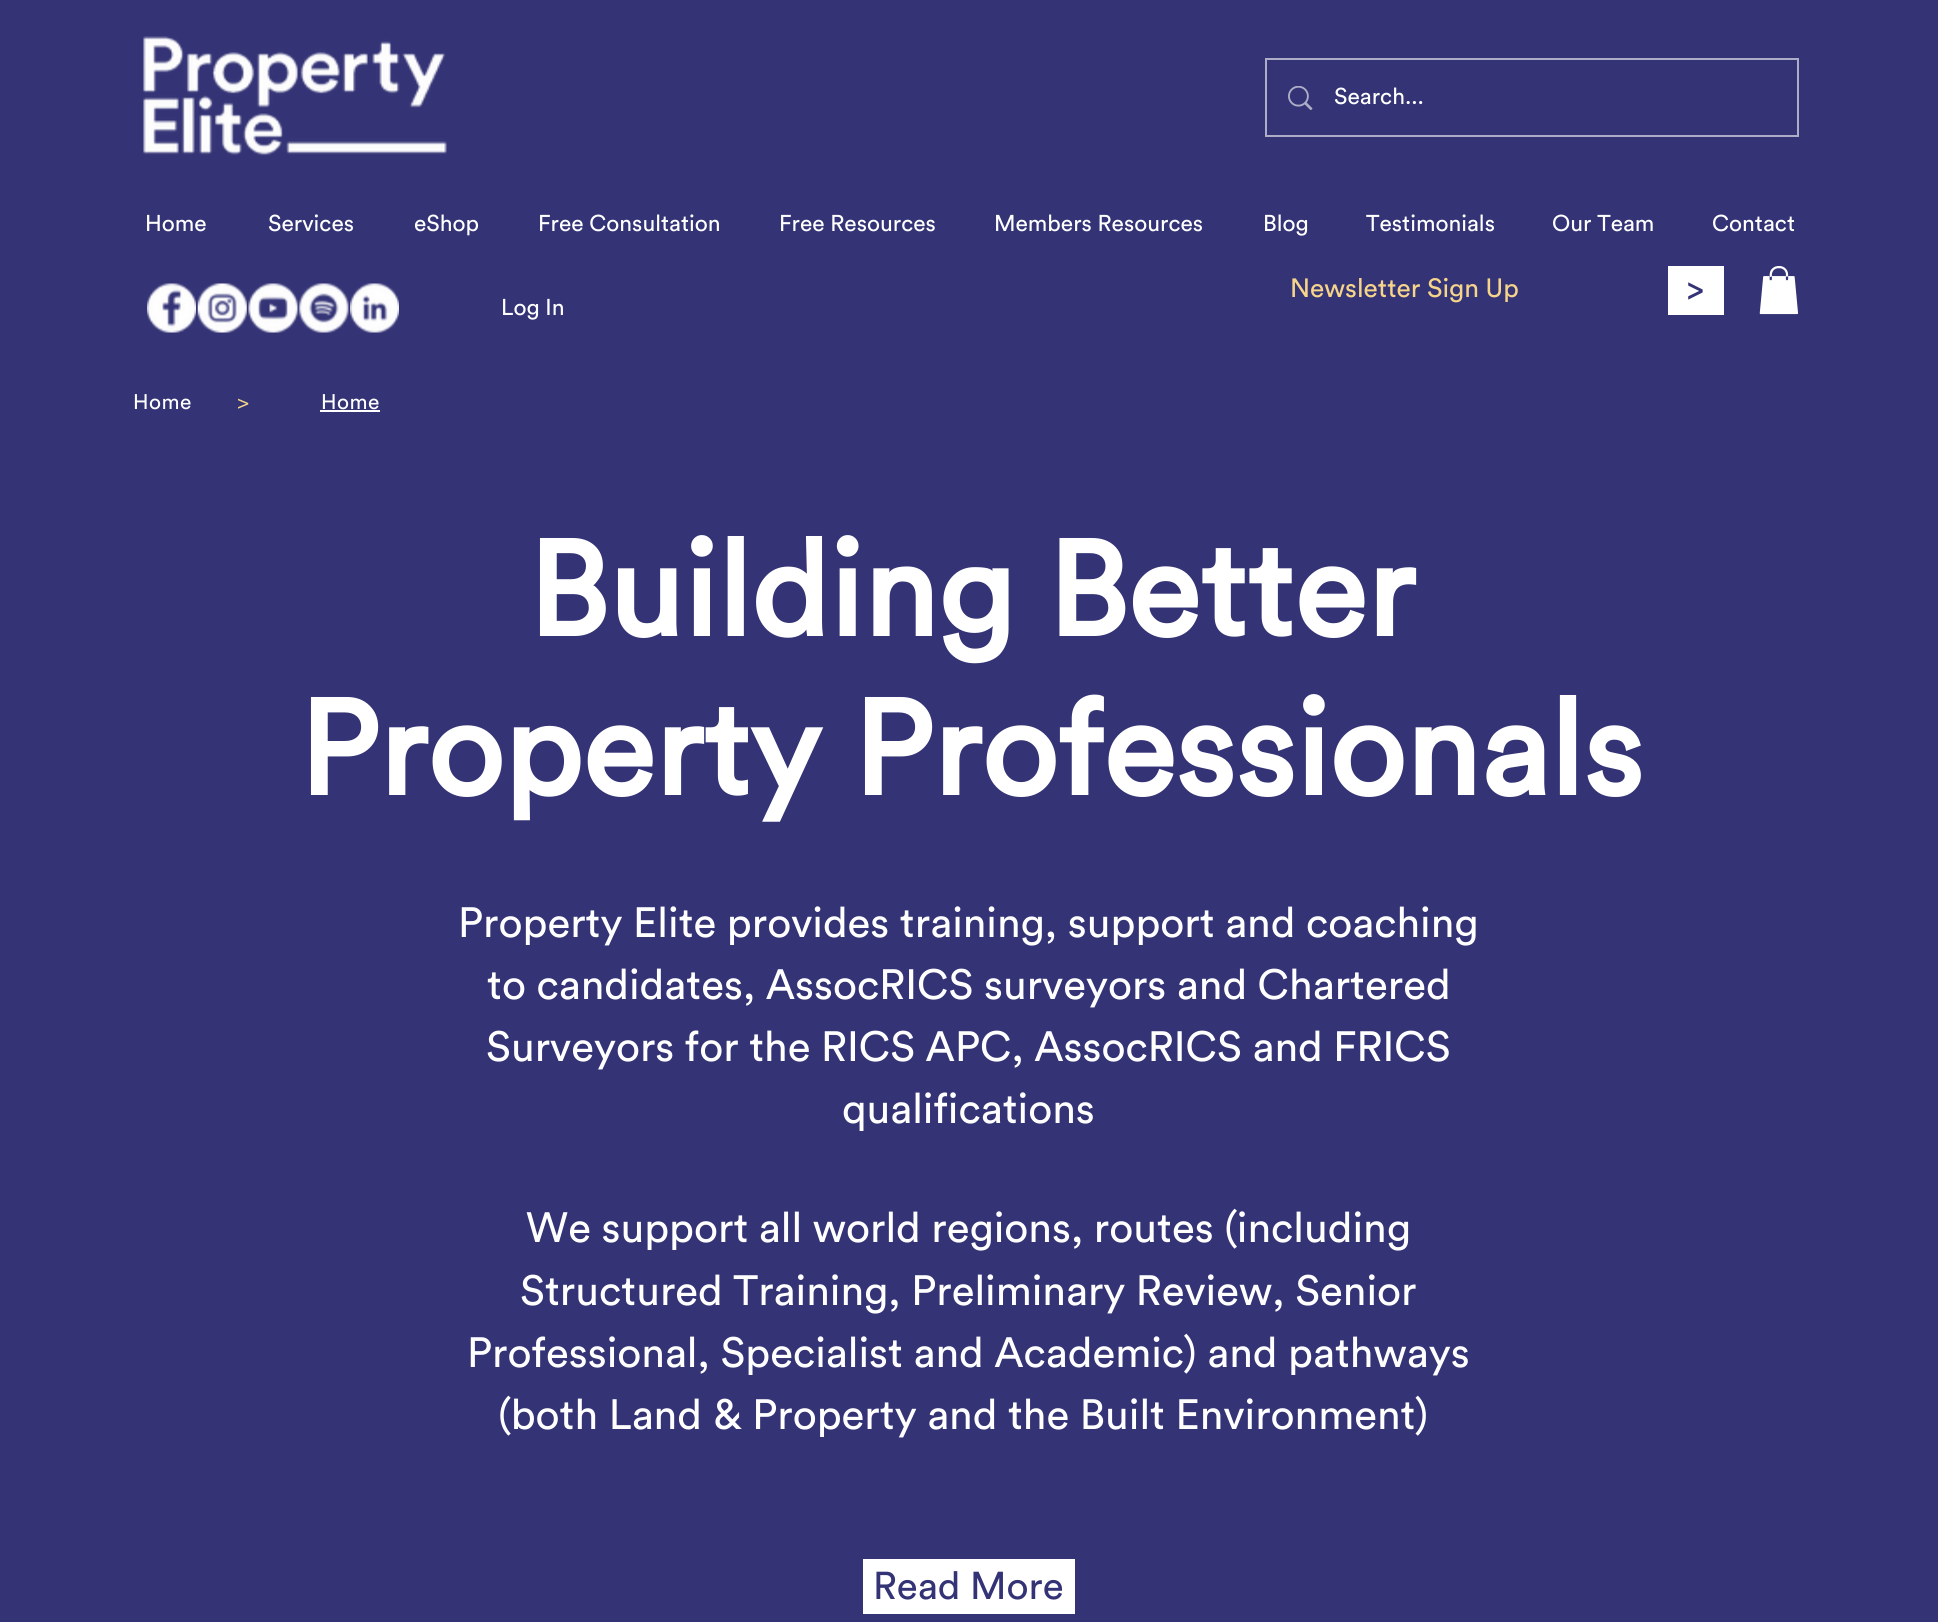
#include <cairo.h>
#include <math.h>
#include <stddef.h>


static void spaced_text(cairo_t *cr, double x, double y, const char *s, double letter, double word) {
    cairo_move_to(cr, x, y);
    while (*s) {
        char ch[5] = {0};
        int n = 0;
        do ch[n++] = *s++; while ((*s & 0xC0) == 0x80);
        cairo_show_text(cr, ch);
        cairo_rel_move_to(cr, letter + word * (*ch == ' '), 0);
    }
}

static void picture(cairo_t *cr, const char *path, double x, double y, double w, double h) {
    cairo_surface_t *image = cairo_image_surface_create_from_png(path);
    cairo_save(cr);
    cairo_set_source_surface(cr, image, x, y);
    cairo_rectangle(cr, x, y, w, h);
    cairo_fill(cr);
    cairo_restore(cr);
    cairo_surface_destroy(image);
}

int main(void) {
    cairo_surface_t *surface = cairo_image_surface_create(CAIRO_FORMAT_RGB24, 1938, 1622);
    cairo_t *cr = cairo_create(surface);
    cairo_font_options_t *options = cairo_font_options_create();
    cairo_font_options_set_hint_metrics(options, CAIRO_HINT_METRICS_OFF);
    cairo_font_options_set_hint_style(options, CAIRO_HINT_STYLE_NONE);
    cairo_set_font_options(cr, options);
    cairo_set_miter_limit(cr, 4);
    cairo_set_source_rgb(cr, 0.2, 0.2, 0.463);
    cairo_paint(cr);
    picture(cr, "img1.png", 143, 36, 304, 120);
    cairo_rectangle(cr, 1266, 59, 532, 77);
    cairo_set_source_rgb(cr, 0.678, 0.678, 0.784);
    cairo_stroke(cr);
    picture(cr, "img2.png", 1288, 86, 25, 24);
    cairo_select_font_face(cr, "Circular", CAIRO_FONT_SLANT_NORMAL, CAIRO_FONT_WEIGHT_NORMAL);
    cairo_set_font_size(cr, 22.75);
    cairo_set_source_rgb(cr, 1, 1, 1);
    cairo_move_to(cr, 1334, 104);
    cairo_show_text(cr, "Search...");
    cairo_move_to(cr, 145, 231);
    cairo_show_text(cr, "Home");
    cairo_move_to(cr, 268, 231);
    cairo_show_text(cr, "Services");
    cairo_move_to(cr, 414, 231);
    cairo_show_text(cr, "eShop");
    cairo_move_to(cr, 538, 231);
    cairo_show_text(cr, "Free Consultation");
    cairo_move_to(cr, 779, 231);
    cairo_show_text(cr, "Free Resources");
    cairo_move_to(cr, 994, 231);
    cairo_show_text(cr, "Members Resources");
    cairo_move_to(cr, 1263, 231);
    cairo_show_text(cr, "Blog");
    cairo_move_to(cr, 1366, 231);
    cairo_show_text(cr, "Testimonials");
    cairo_move_to(cr, 1552, 231);
    cairo_show_text(cr, "Our Team");
    cairo_move_to(cr, 1712, 231);
    cairo_show_text(cr, "Contact");
    picture(cr, "img3.png", 147, 283, 49, 50);
    picture(cr, "img4.png", 197, 283, 50, 50);
    picture(cr, "img5.png", 248, 283, 50, 50);
    picture(cr, "img6.png", 298, 283, 51, 50);
    picture(cr, "img7.png", 350, 283, 49, 50);
    cairo_move_to(cr, 501, 315);
    cairo_show_text(cr, "Log In");
    cairo_set_font_size(cr, 26.25);
    cairo_set_source_rgb(cr, 0.961, 0.831, 0.541);
    cairo_move_to(cr, 1290, 297);
    cairo_show_text(cr, "Newsletter Sign Up");
    cairo_set_source_rgb(cr, 1, 1, 1);
    cairo_rectangle(cr, 1668, 266, 56, 49);
    cairo_fill(cr);
    cairo_set_font_size(cr, 35);
    cairo_set_source_rgb(cr, 0.2, 0.2, 0.463);
    cairo_move_to(cr, 1687, 301);
    cairo_show_text(cr, ">");
    picture(cr, "img8.png", 1759, 266, 40, 49);
    cairo_set_font_size(cr, 21);
    cairo_set_source_rgb(cr, 1, 1, 1);
    spaced_text(cr, 133, 409, "Home", 0.5, 0);
    cairo_select_font_face(cr, "helvetica", CAIRO_FONT_SLANT_NORMAL, CAIRO_FONT_WEIGHT_NORMAL);
    cairo_set_source_rgb(cr, 0.961, 0.831, 0.541);
    cairo_move_to(cr, 237, 409);
    cairo_show_text(cr, ">");
    cairo_select_font_face(cr, "Circular", CAIRO_FONT_SLANT_NORMAL, CAIRO_FONT_WEIGHT_NORMAL);
    cairo_set_source_rgb(cr, 1, 1, 1);
    spaced_text(cr, 321, 409, "Home", 0.5, 0);
    cairo_rectangle(cr, 320, 410, 60, 2);
    cairo_fill(cr);
    cairo_select_font_face(cr, "Circular", CAIRO_FONT_SLANT_NORMAL, CAIRO_FONT_WEIGHT_BOLD);
    cairo_set_font_size(cr, 133);
    cairo_move_to(cr, 528, 636);
    cairo_show_text(cr, "Building Better");
    cairo_move_to(cr, 299, 795);
    cairo_show_text(cr, "Property Professionals");
    cairo_select_font_face(cr, "Circular", CAIRO_FONT_SLANT_NORMAL, CAIRO_FONT_WEIGHT_NORMAL);
    cairo_set_font_size(cr, 42);
    cairo_move_to(cr, 458, 937);
    cairo_show_text(cr, "Property Elite provides training, support and coaching");
    cairo_move_to(cr, 487, 999);
    cairo_show_text(cr, "to candidates, AssocRICS surveyors and Chartered");
    cairo_move_to(cr, 486, 1061);
    cairo_show_text(cr, "Surveyors for the RICS APC, AssocRICS and FRICS");
    cairo_move_to(cr, 842, 1123);
    cairo_show_text(cr, "qualifications");
    cairo_move_to(cr, 526, 1242);
    cairo_show_text(cr, "We support all world regions, routes (including");
    cairo_move_to(cr, 520, 1305);
    cairo_show_text(cr, "Structured Training, Preliminary Review, Senior");
    cairo_move_to(cr, 467, 1367);
    cairo_show_text(cr, "Professional, Specialist and Academic) and pathways");
    cairo_move_to(cr, 498, 1429);
    cairo_show_text(cr, "(both Land & Property and the Built Environment)");
    cairo_rectangle(cr, 863, 1559, 212, 55);
    cairo_fill(cr);
    cairo_set_font_size(cr, 38.5);
    cairo_set_source_rgb(cr, 0.2, 0.2, 0.463);
    cairo_move_to(cr, 873, 1599);
    cairo_show_text(cr, "Read More");
    cairo_surface_write_to_png(surface, "page.png");
    cairo_font_options_destroy(options);
    cairo_destroy(cr);
    cairo_surface_destroy(surface);
    return 0;
}
